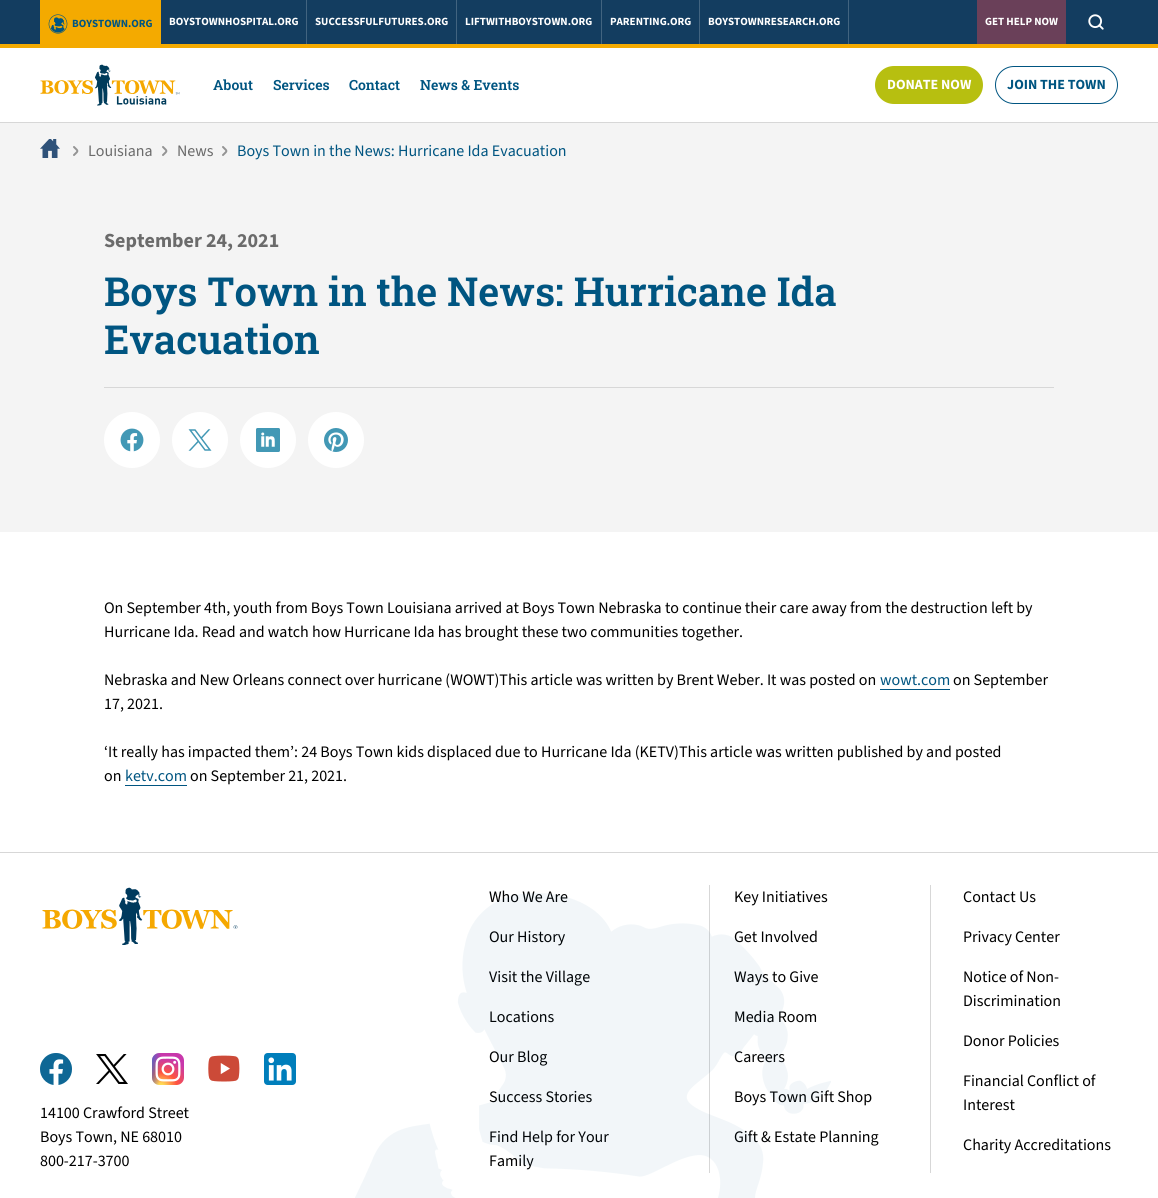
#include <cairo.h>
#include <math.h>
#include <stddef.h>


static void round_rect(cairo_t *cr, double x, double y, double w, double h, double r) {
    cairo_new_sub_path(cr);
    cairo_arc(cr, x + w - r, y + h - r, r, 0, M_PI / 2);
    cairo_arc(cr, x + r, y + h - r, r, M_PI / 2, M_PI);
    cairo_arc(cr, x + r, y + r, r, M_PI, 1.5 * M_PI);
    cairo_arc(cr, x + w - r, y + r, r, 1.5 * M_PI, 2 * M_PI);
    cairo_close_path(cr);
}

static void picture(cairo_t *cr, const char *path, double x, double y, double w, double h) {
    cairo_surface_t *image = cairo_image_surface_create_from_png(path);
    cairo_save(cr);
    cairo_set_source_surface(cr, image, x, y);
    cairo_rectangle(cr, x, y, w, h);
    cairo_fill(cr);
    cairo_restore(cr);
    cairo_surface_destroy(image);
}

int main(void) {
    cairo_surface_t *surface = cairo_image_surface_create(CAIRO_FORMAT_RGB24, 1158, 1198);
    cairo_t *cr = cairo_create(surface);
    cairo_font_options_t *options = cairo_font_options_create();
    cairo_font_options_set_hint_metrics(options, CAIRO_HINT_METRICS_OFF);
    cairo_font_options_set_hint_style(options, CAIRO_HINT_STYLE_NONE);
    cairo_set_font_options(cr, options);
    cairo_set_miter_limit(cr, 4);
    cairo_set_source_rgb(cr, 1, 1, 1);
    cairo_paint(cr);
    cairo_set_source_rgb(cr, 0.075, 0.239, 0.376);
    cairo_rectangle(cr, 0, 0, 1158, 44);
    cairo_fill(cr);
    cairo_set_source_rgb(cr, 0.957, 0.667, 0);
    cairo_rectangle(cr, 0, 44, 1158, 4);
    cairo_fill(cr);
    cairo_rectangle(cr, 40, 0, 121, 44);
    cairo_fill(cr);
    picture(cr, "img1.png", 48, 14, 20, 20);
    cairo_select_font_face(cr, "Source Sans 3", CAIRO_FONT_SLANT_NORMAL, CAIRO_FONT_WEIGHT_BOLD);
    cairo_set_font_size(cr, 11);
    cairo_set_source_rgb(cr, 0, 0.333, 0.506);
    cairo_move_to(cr, 72, 27);
    cairo_show_text(cr, "BOYSTOWN.ORG");
    cairo_set_source_rgb(cr, 0.259, 0.392, 0.502);
    cairo_rectangle(cr, 848, 0, 1, 44);
    cairo_fill(cr);
    cairo_set_source_rgb(cr, 1, 1, 1);
    cairo_move_to(cr, 169, 25);
    cairo_show_text(cr, "BOYSTOWNHOSPITAL.ORG");
    cairo_set_source_rgb(cr, 0.259, 0.392, 0.502);
    cairo_rectangle(cr, 306, 0, 1, 44);
    cairo_fill(cr);
    cairo_set_source_rgb(cr, 1, 1, 1);
    cairo_move_to(cr, 315, 25);
    cairo_show_text(cr, "SUCCESSFULFUTURES.ORG");
    cairo_set_source_rgb(cr, 0.259, 0.392, 0.502);
    cairo_rectangle(cr, 456, 0, 1, 44);
    cairo_fill(cr);
    cairo_set_source_rgb(cr, 1, 1, 1);
    cairo_move_to(cr, 465, 25);
    cairo_show_text(cr, "LIFTWITHBOYSTOWN.ORG");
    cairo_set_source_rgb(cr, 0.259, 0.392, 0.502);
    cairo_rectangle(cr, 601, 0, 1, 44);
    cairo_fill(cr);
    cairo_set_source_rgb(cr, 1, 1, 1);
    cairo_move_to(cr, 610, 25);
    cairo_show_text(cr, "PARENTING.ORG");
    cairo_set_source_rgb(cr, 0.259, 0.392, 0.502);
    cairo_rectangle(cr, 699, 0, 1, 44);
    cairo_fill(cr);
    cairo_set_source_rgb(cr, 1, 1, 1);
    cairo_move_to(cr, 708, 25);
    cairo_show_text(cr, "BOYSTOWNRESEARCH.ORG");
    cairo_set_source_rgb(cr, 0.416, 0.251, 0.349);
    cairo_rectangle(cr, 977, 0, 89, 44);
    cairo_fill(cr);
    cairo_set_source_rgb(cr, 1, 1, 1);
    cairo_move_to(cr, 985, 25);
    cairo_show_text(cr, "GET HELP NOW");
    picture(cr, "img2.png", 1088, 14, 16, 16);
    cairo_set_source_rgb(cr, 0.843, 0.843, 0.843);
    cairo_rectangle(cr, 0, 122, 1158, 1);
    cairo_fill(cr);
    picture(cr, "img3.png", 40, 64, 140, 42);
    cairo_select_font_face(cr, "Roboto Slab SemiBold", CAIRO_FONT_SLANT_NORMAL, CAIRO_FONT_WEIGHT_NORMAL);
    cairo_set_font_size(cr, 14);
    cairo_set_source_rgb(cr, 0, 0.333, 0.506);
    cairo_move_to(cr, 213, 90);
    cairo_show_text(cr, "About");
    cairo_move_to(cr, 273, 90);
    cairo_show_text(cr, "Services");
    cairo_move_to(cr, 349, 90);
    cairo_show_text(cr, "Contact");
    cairo_move_to(cr, 420, 90);
    cairo_show_text(cr, "News & Events");
    cairo_set_source_rgb(cr, 0.718, 0.749, 0.063);
    round_rect(cr, 875, 66, 108, 38, 19);
    cairo_fill(cr);
    cairo_select_font_face(cr, "Source Sans 3", CAIRO_FONT_SLANT_NORMAL, CAIRO_FONT_WEIGHT_BOLD);
    cairo_set_source_rgb(cr, 1, 1, 1);
    cairo_move_to(cr, 887, 89);
    cairo_show_text(cr, "DONATE NOW");
    round_rect(cr, 995.5, 66.5, 122, 37, 18.5);
    cairo_set_source_rgb(cr, 0, 0.333, 0.506);
    cairo_set_line_width(cr, 1);
    cairo_stroke(cr);
    cairo_move_to(cr, 1007, 89);
    cairo_show_text(cr, "JOIN THE TOWN");
    cairo_set_source_rgb(cr, 0.957, 0.957, 0.957);
    cairo_rectangle(cr, 0, 123, 1158, 409);
    cairo_fill(cr);
    picture(cr, "img4.png", 40, 139, 20, 19);
    cairo_new_path(cr);
    cairo_move_to(cr, 74, 155);
    cairo_curve_to(cr, 78.5, 150.5, 78.5, 151.5, 74, 147);
    cairo_set_source_rgb(cr, 0.58, 0.58, 0.58);
    cairo_set_line_width(cr, 2);
    cairo_set_line_cap(cr, CAIRO_LINE_CAP_ROUND);
    cairo_set_line_join(cr, CAIRO_LINE_JOIN_ROUND);
    cairo_stroke(cr);
    cairo_select_font_face(cr, "Source Sans 3", CAIRO_FONT_SLANT_NORMAL, CAIRO_FONT_WEIGHT_NORMAL);
    cairo_set_font_size(cr, 16);
    cairo_set_source_rgb(cr, 0.42, 0.42, 0.42);
    cairo_move_to(cr, 88, 156);
    cairo_show_text(cr, "Louisiana");
    cairo_new_path(cr);
    cairo_move_to(cr, 163, 155);
    cairo_curve_to(cr, 167.5, 150.5, 167.5, 151.5, 163, 147);
    cairo_set_source_rgb(cr, 0.58, 0.58, 0.58);
    cairo_stroke(cr);
    cairo_set_source_rgb(cr, 0.42, 0.42, 0.42);
    cairo_move_to(cr, 177, 156);
    cairo_show_text(cr, "News");
    cairo_new_path(cr);
    cairo_move_to(cr, 223, 155);
    cairo_curve_to(cr, 227.5, 150.5, 227.5, 151.5, 223, 147);
    cairo_set_source_rgb(cr, 0.58, 0.58, 0.58);
    cairo_stroke(cr);
    cairo_set_source_rgb(cr, 0, 0.333, 0.506);
    cairo_move_to(cr, 237, 156);
    cairo_show_text(cr, "Boys Town in the News: Hurricane Ida Evacuation");
    cairo_select_font_face(cr, "Source Sans 3", CAIRO_FONT_SLANT_NORMAL, CAIRO_FONT_WEIGHT_BOLD);
    cairo_set_font_size(cr, 20);
    cairo_set_source_rgb(cr, 0.42, 0.42, 0.42);
    cairo_move_to(cr, 104, 247);
    cairo_show_text(cr, "September 24, 2021");
    cairo_select_font_face(cr, "Roboto Slab SemiBold", CAIRO_FONT_SLANT_NORMAL, CAIRO_FONT_WEIGHT_NORMAL);
    cairo_set_font_size(cr, 40);
    cairo_set_source_rgb(cr, 0, 0.333, 0.506);
    cairo_move_to(cr, 104, 306);
    cairo_show_text(cr, "Boys Town in the News: Hurricane Ida");
    cairo_move_to(cr, 104, 354);
    cairo_show_text(cr, "Evacuation");
    cairo_set_source_rgb(cr, 0.843, 0.843, 0.843);
    cairo_rectangle(cr, 104, 387, 950, 1);
    cairo_fill(cr);
    cairo_set_source_rgb(cr, 1, 1, 1);
    cairo_arc(cr, 132, 440, 28, 0, 2 * M_PI);
    cairo_fill(cr);
    picture(cr, "img5.png", 120, 428, 24, 24);
    cairo_arc(cr, 200, 440, 28, 0, 2 * M_PI);
    cairo_fill(cr);
    picture(cr, "img6.png", 188, 429, 24, 22);
    cairo_arc(cr, 268, 440, 28, 0, 2 * M_PI);
    cairo_fill(cr);
    picture(cr, "img7.png", 256, 428, 24, 24);
    cairo_arc(cr, 336, 440, 28, 0, 2 * M_PI);
    cairo_fill(cr);
    picture(cr, "img8.png", 324, 428, 24, 24);
    cairo_select_font_face(cr, "Source Sans 3", CAIRO_FONT_SLANT_NORMAL, CAIRO_FONT_WEIGHT_NORMAL);
    cairo_set_font_size(cr, 16);
    cairo_set_source_rgb(cr, 0, 0, 0);
    cairo_move_to(cr, 104, 613);
    cairo_show_text(cr, "On September 4th, youth from Boys Town Louisiana arrived at Boys Town Nebraska to continue their care away from the destruction left by");
    cairo_move_to(cr, 104, 637);
    cairo_show_text(cr, "Hurricane Ida. Read and watch how Hurricane Ida has brought these two communities together.");
    cairo_move_to(cr, 104, 685);
    cairo_show_text(cr, "Nebraska and New Orleans connect over hurricane (WOWT)This article was written by Brent Weber. It was posted on");
    cairo_set_source_rgb(cr, 0, 0.333, 0.506);
    cairo_move_to(cr, 880, 685);
    cairo_show_text(cr, "wowt.com");
    cairo_rectangle(cr, 880, 689, 70, 1);
    cairo_fill(cr);
    cairo_set_source_rgb(cr, 0, 0, 0);
    cairo_move_to(cr, 953, 685);
    cairo_show_text(cr, "on September");
    cairo_move_to(cr, 104, 709);
    cairo_show_text(cr, "17, 2021.");
    cairo_move_to(cr, 104, 757);
    cairo_show_text(cr, "‘It really has impacted them’: 24 Boys Town kids displaced due to Hurricane Ida (KETV)This article was written published by and posted");
    cairo_move_to(cr, 104, 781);
    cairo_show_text(cr, "on");
    cairo_set_source_rgb(cr, 0, 0.333, 0.506);
    cairo_move_to(cr, 125, 781);
    cairo_show_text(cr, "ketv.com");
    cairo_rectangle(cr, 125, 785, 62, 1);
    cairo_fill(cr);
    cairo_set_source_rgb(cr, 0, 0, 0);
    cairo_move_to(cr, 190, 781);
    cairo_show_text(cr, "on September 21, 2021.");
    cairo_set_source_rgb(cr, 0.843, 0.843, 0.843);
    cairo_rectangle(cr, 0, 852, 1158, 1);
    cairo_fill(cr);
    picture(cr, "img9.png", 42, 887, 196, 58);
    picture(cr, "img10.png", 40, 1053, 32, 32);
    picture(cr, "img11.png", 96, 1054, 32, 30);
    picture(cr, "img12.png", 152, 1053, 32, 32);
    picture(cr, "img13.png", 208, 1055, 32, 27);
    picture(cr, "img14.png", 264, 1053, 32, 32);
    cairo_set_source_rgb(cr, 0, 0, 0);
    cairo_move_to(cr, 40, 1118);
    cairo_show_text(cr, "14100 Crawford Street");
    cairo_move_to(cr, 40, 1142);
    cairo_show_text(cr, "Boys Town, NE 68010");
    cairo_move_to(cr, 40, 1166);
    cairo_show_text(cr, "800-217-3700");
    cairo_move_to(cr, 489, 902);
    cairo_show_text(cr, "Who We Are");
    cairo_move_to(cr, 489, 942);
    cairo_show_text(cr, "Our History");
    cairo_move_to(cr, 489, 982);
    cairo_show_text(cr, "Visit the Village");
    cairo_move_to(cr, 489, 1022);
    cairo_show_text(cr, "Locations");
    cairo_move_to(cr, 489, 1062);
    cairo_show_text(cr, "Our Blog");
    cairo_move_to(cr, 489, 1102);
    cairo_show_text(cr, "Success Stories");
    cairo_move_to(cr, 489, 1142);
    cairo_show_text(cr, "Find Help for Your");
    cairo_move_to(cr, 489, 1166);
    cairo_show_text(cr, "Family");
    cairo_set_source_rgb(cr, 0.843, 0.843, 0.843);
    cairo_rectangle(cr, 709, 885, 1, 288);
    cairo_fill(cr);
    cairo_set_source_rgb(cr, 0, 0, 0);
    cairo_move_to(cr, 734, 902);
    cairo_show_text(cr, "Key Initiatives");
    cairo_move_to(cr, 734, 942);
    cairo_show_text(cr, "Get Involved");
    cairo_move_to(cr, 734, 982);
    cairo_show_text(cr, "Ways to Give");
    cairo_move_to(cr, 734, 1022);
    cairo_show_text(cr, "Media Room");
    cairo_move_to(cr, 734, 1062);
    cairo_show_text(cr, "Careers");
    cairo_move_to(cr, 734, 1102);
    cairo_show_text(cr, "Boys Town Gift Shop");
    cairo_move_to(cr, 734, 1142);
    cairo_show_text(cr, "Gift & Estate Planning");
    cairo_set_source_rgb(cr, 0.843, 0.843, 0.843);
    cairo_rectangle(cr, 930, 885, 1, 288);
    cairo_fill(cr);
    cairo_set_source_rgb(cr, 0, 0, 0);
    cairo_move_to(cr, 963, 902);
    cairo_show_text(cr, "Contact Us");
    cairo_move_to(cr, 963, 942);
    cairo_show_text(cr, "Privacy Center");
    cairo_move_to(cr, 963, 982);
    cairo_show_text(cr, "Notice of Non-");
    cairo_move_to(cr, 963, 1006);
    cairo_show_text(cr, "Discrimination");
    cairo_move_to(cr, 963, 1046);
    cairo_show_text(cr, "Donor Policies");
    cairo_move_to(cr, 963, 1086);
    cairo_show_text(cr, "Financial Conflict of");
    cairo_move_to(cr, 963, 1110);
    cairo_show_text(cr, "Interest");
    cairo_move_to(cr, 963, 1150);
    cairo_show_text(cr, "Charity Accreditations");
    picture(cr, "img15.png", 355, 893, 476, 305);
    cairo_surface_write_to_png(surface, "page.png");
    cairo_font_options_destroy(options);
    cairo_destroy(cr);
    cairo_surface_destroy(surface);
    return 0;
}
